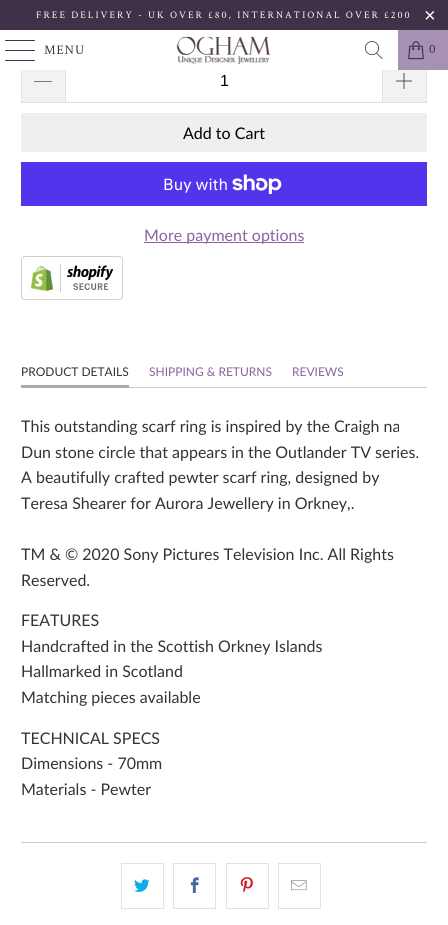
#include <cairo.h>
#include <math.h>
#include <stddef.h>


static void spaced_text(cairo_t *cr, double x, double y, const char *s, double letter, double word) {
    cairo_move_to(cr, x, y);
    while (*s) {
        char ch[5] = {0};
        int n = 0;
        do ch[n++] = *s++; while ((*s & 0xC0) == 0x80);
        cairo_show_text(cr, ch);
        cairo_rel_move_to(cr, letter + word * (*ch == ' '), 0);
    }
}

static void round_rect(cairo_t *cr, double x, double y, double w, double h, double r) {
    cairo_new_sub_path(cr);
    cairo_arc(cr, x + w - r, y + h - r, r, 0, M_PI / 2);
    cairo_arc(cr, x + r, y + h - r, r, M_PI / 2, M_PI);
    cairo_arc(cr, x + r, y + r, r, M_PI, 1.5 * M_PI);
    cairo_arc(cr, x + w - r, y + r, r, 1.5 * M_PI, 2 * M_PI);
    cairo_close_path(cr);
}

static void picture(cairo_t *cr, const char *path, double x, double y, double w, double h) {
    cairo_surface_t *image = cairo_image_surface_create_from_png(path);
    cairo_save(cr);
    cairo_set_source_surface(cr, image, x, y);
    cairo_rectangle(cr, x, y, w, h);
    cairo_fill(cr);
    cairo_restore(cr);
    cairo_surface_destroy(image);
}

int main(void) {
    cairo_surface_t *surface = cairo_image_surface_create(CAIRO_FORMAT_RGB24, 448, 925);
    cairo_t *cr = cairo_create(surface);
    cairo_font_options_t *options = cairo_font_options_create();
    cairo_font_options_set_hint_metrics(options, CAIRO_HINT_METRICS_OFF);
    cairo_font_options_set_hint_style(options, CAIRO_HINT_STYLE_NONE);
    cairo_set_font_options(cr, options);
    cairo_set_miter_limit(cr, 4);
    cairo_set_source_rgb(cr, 1, 1, 1);
    cairo_paint(cr);
    cairo_set_source_rgb(cr, 0.247, 0.192, 0.282);
    cairo_rectangle(cr, 0, 0, 448, 30);
    cairo_fill(cr);
    cairo_select_font_face(cr, "Crimson Text", CAIRO_FONT_SLANT_NORMAL, CAIRO_FONT_WEIGHT_NORMAL);
    cairo_set_font_size(cr, 10);
    cairo_set_source_rgb(cr, 1, 1, 1);
    spaced_text(cr, 36, 18, "FREE DELIVERY - UK OVER £80, INTERNATIONAL OVER £200", 2, 0);
    cairo_select_font_face(cr, "Liberation Sans", CAIRO_FONT_SLANT_NORMAL, CAIRO_FONT_WEIGHT_NORMAL);
    cairo_set_font_size(cr, 20);
    spaced_text(cr, 424, 22, "×", 2, 0);
    cairo_rectangle(cr, 65.5, 59.5, 317, 43);
    cairo_set_source_rgb(cr, 0.886, 0.886, 0.886);
    cairo_set_line_width(cr, 1);
    cairo_stroke(cr);
    cairo_set_source_rgb(cr, 1, 1, 1);
    cairo_rectangle(cr, 65, 59, 318, 11);
    cairo_fill(cr);
    cairo_set_source_rgb(cr, 0.247, 0.192, 0.282);
    round_rect(cr, 5, 40, 30, 1, 0.5);
    cairo_fill(cr);
    round_rect(cr, 5, 50, 30, 1, 0.5);
    cairo_fill(cr);
    round_rect(cr, 5, 60, 30, 1, 0.5);
    cairo_fill(cr);
    cairo_select_font_face(cr, "Crimson Text", CAIRO_FONT_SLANT_NORMAL, CAIRO_FONT_WEIGHT_NORMAL);
    cairo_set_font_size(cr, 13);
    spaced_text(cr, 44, 54, "MENU", 1, 0);
    picture(cr, "img1.png", 176, 36, 95, 28);
    picture(cr, "img2.png", 365, 41, 18, 18);
    cairo_set_source_rgb(cr, 0.651, 0.565, 0.706);
    cairo_rectangle(cr, 398, 30, 50, 40);
    cairo_fill(cr);
    picture(cr, "img3.png", 408, 41, 16, 19);
    cairo_set_source_rgb(cr, 0.247, 0.192, 0.282);
    spaced_text(cr, 429, 53, "0", 1, 0);
    cairo_set_source_rgb(cr, 0.949, 0.949, 0.949);
    cairo_rectangle(cr, 22, 70, 43, 32);
    cairo_fill(cr);
    cairo_set_source_rgb(cr, 0.886, 0.886, 0.886);
    cairo_rectangle(cr, 21, 102, 44, 1);
    cairo_fill(cr);
    cairo_rectangle(cr, 21, 70, 1, 33);
    cairo_fill(cr);
    cairo_set_source_rgb(cr, 0, 0, 0);
    cairo_new_path(cr);
    cairo_move_to(cr, 34, 81);
    cairo_line_to(cr, 52, 81);
    cairo_line_to(cr, 52, 81.5);
    cairo_line_to(cr, 34, 81.5);
    cairo_close_path(cr);
    cairo_fill(cr);
    cairo_select_font_face(cr, "Liberation Sans", CAIRO_FONT_SLANT_NORMAL, CAIRO_FONT_WEIGHT_NORMAL);
    cairo_set_font_size(cr, 16);
    cairo_move_to(cr, 220, 86);
    cairo_show_text(cr, "1");
    cairo_set_source_rgb(cr, 0.949, 0.949, 0.949);
    cairo_rectangle(cr, 383, 70, 43, 32);
    cairo_fill(cr);
    cairo_set_source_rgb(cr, 0.886, 0.886, 0.886);
    cairo_rectangle(cr, 426, 70, 1, 33);
    cairo_fill(cr);
    cairo_rectangle(cr, 383, 102, 44, 1);
    cairo_fill(cr);
    picture(cr, "img4.png", 396, 73, 16, 16);
    cairo_set_source_rgb(cr, 0.937, 0.937, 0.937);
    cairo_rectangle(cr, 21, 113, 406, 39);
    cairo_fill(cr);
    cairo_select_font_face(cr, "Lato", CAIRO_FONT_SLANT_NORMAL, CAIRO_FONT_WEIGHT_NORMAL);
    cairo_set_source_rgb(cr, 0, 0, 0);
    cairo_move_to(cr, 183, 139);
    cairo_show_text(cr, "Add to Cart");
    cairo_set_source_rgb(cr, 0.329, 0.2, 0.922);
    cairo_rectangle(cr, 21, 162, 406, 44);
    cairo_fill(cr);
    cairo_select_font_face(cr, "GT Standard", CAIRO_FONT_SLANT_NORMAL, CAIRO_FONT_WEIGHT_NORMAL);
    cairo_set_source_rgb(cr, 1, 1, 1);
    cairo_move_to(cr, 163, 190);
    cairo_show_text(cr, "Buy with");
    picture(cr, "img5.png", 232, 174, 50, 20);
    cairo_set_source_rgb(cr, 0.533, 0.388, 0.624);
    cairo_rectangle(cr, 144, 242, 160, 1);
    cairo_fill(cr);
    cairo_select_font_face(cr, "Lato", CAIRO_FONT_SLANT_NORMAL, CAIRO_FONT_WEIGHT_NORMAL);
    cairo_move_to(cr, 144, 241);
    cairo_show_text(cr, "More payment options");
    picture(cr, "img6.png", 21, 256, 102, 44);
    cairo_set_source_rgb(cr, 0.8, 0.8, 0.8);
    cairo_rectangle(cr, 129, 387, 298, 1);
    cairo_fill(cr);
    cairo_set_source_rgb(cr, 0.667, 0.667, 0.667);
    cairo_rectangle(cr, 21, 385, 108, 3);
    cairo_fill(cr);
    cairo_set_font_size(cr, 12);
    cairo_set_source_rgb(cr, 0.2, 0.2, 0.2);
    cairo_move_to(cr, 21, 376);
    cairo_show_text(cr, "PRODUCT DETAILS");
    cairo_set_source_rgb(cr, 0.533, 0.388, 0.624);
    cairo_move_to(cr, 149, 376);
    cairo_show_text(cr, "SHIPPING & RETURNS");
    cairo_move_to(cr, 292, 376);
    cairo_show_text(cr, "REVIEWS");
    cairo_set_font_size(cr, 16);
    cairo_set_source_rgb(cr, 0.2, 0.2, 0.2);
    cairo_move_to(cr, 21, 432);
    cairo_show_text(cr, "This outstanding scarf ring is inspired by the Craigh na");
    cairo_move_to(cr, 21, 458);
    cairo_show_text(cr, "Dun stone circle that appears in the Outlander TV series.");
    cairo_move_to(cr, 21, 483);
    cairo_show_text(cr, "A beautifully crafted pewter scarf ring, designed by");
    cairo_move_to(cr, 21, 509);
    cairo_show_text(cr, "Teresa Shearer for Aurora Jewellery in Orkney,.");
    cairo_move_to(cr, 21, 560);
    cairo_show_text(cr, "TM & © 2020 Sony Pictures Television Inc. All Rights");
    cairo_move_to(cr, 21, 586);
    cairo_show_text(cr, "Reserved.");
    cairo_move_to(cr, 21, 626);
    cairo_show_text(cr, "FEATURES");
    cairo_move_to(cr, 21, 652);
    cairo_show_text(cr, "Handcrafted in the Scottish Orkney Islands");
    cairo_move_to(cr, 21, 677);
    cairo_show_text(cr, "Hallmarked in Scotland");
    cairo_move_to(cr, 21, 703);
    cairo_show_text(cr, "Matching pieces available");
    cairo_move_to(cr, 21, 744);
    cairo_show_text(cr, "TECHNICAL SPECS");
    cairo_move_to(cr, 21, 769);
    cairo_show_text(cr, "Dimensions - 70mm");
    cairo_move_to(cr, 21, 795);
    cairo_show_text(cr, "Materials - Pewter");
    cairo_set_source_rgb(cr, 0.8, 0.8, 0.8);
    cairo_rectangle(cr, 21, 842, 406, 1);
    cairo_fill(cr);
    cairo_rectangle(cr, 121.5, 863.5, 42, 45);
    cairo_set_source_rgb(cr, 0.886, 0.886, 0.886);
    cairo_stroke(cr);
    picture(cr, "img7.png", 134, 879, 16, 13);
    cairo_rectangle(cr, 173.5, 863.5, 42, 45);
    cairo_stroke(cr);
    picture(cr, "img8.png", 190, 877, 9, 16);
    cairo_rectangle(cr, 226.5, 863.5, 42, 45);
    cairo_stroke(cr);
    picture(cr, "img9.png", 240, 877, 13, 16);
    cairo_rectangle(cr, 278.5, 863.5, 42, 45);
    cairo_stroke(cr);
    picture(cr, "img10.png", 291, 880, 16, 11);
    cairo_surface_write_to_png(surface, "page.png");
    cairo_font_options_destroy(options);
    cairo_destroy(cr);
    cairo_surface_destroy(surface);
    return 0;
}
